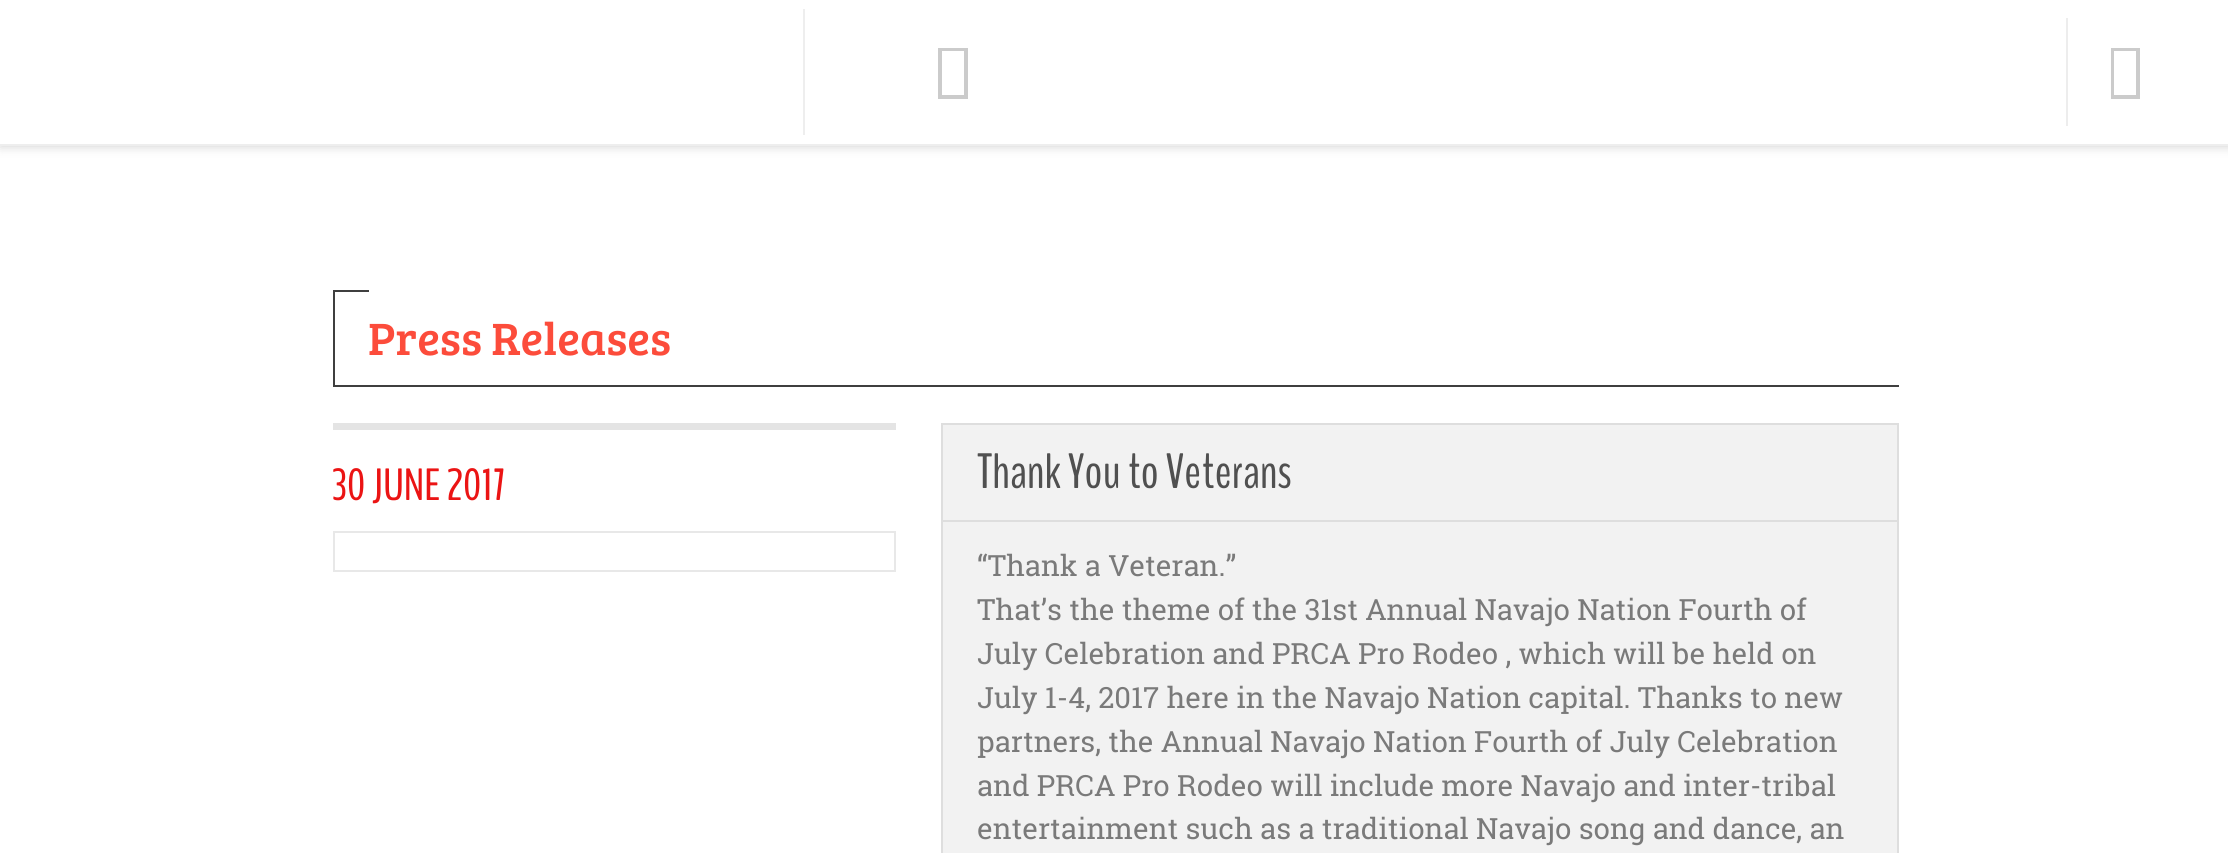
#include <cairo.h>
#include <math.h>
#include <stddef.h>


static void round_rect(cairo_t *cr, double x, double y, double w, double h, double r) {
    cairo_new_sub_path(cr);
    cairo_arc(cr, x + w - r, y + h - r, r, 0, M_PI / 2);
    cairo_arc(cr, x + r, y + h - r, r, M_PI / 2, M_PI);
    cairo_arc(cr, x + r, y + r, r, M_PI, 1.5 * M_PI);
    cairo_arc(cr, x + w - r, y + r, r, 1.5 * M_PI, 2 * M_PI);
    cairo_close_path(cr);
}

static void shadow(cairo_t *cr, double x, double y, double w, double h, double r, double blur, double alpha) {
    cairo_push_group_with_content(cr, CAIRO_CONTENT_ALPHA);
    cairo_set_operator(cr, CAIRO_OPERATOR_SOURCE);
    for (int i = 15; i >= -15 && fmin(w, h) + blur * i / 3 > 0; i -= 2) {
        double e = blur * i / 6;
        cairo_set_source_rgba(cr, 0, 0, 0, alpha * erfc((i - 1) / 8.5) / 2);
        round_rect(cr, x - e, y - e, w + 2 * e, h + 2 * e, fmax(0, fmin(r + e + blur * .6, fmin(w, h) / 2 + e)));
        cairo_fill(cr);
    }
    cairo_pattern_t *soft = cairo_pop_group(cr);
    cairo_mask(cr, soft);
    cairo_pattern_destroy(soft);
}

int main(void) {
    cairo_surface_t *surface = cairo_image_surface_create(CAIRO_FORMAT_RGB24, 2228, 853);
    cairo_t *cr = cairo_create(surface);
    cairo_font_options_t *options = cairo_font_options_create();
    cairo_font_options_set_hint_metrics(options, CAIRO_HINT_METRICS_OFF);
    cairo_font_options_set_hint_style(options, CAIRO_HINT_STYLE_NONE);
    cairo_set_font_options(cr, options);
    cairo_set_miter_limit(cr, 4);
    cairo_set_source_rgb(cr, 1, 1, 1);
    cairo_paint(cr);
    cairo_set_source_rgb(cr, 0, 0, 0);
    shadow(cr, 0, 0, 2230, 146, 0, 5.5, 0.2);
    cairo_set_source_rgb(cr, 1, 1, 1);
    cairo_rectangle(cr, 0, 0, 2228, 144);
    cairo_fill(cr);
    cairo_set_source_rgb(cr, 0.933, 0.933, 0.933);
    cairo_rectangle(cr, 0, 144, 2228, 2);
    cairo_fill(cr);
    cairo_rectangle(cr, 803, 9, 2, 126);
    cairo_fill(cr);
    cairo_set_source_rgb(cr, 0.796, 0.796, 0.796);
    cairo_new_path(cr);
    cairo_move_to(cr, 938, 99);
    cairo_line_to(cr, 938, 48);
    cairo_line_to(cr, 968, 48);
    cairo_line_to(cr, 968, 99);
    cairo_close_path(cr);
    cairo_move_to(cr, 942, 95);
    cairo_line_to(cr, 964, 95);
    cairo_line_to(cr, 964, 51);
    cairo_line_to(cr, 942, 51);
    cairo_close_path(cr);
    cairo_fill(cr);
    cairo_set_source_rgb(cr, 0.929, 0.929, 0.929);
    cairo_rectangle(cr, 2066, 18, 2, 108);
    cairo_fill(cr);
    cairo_set_source_rgb(cr, 0.796, 0.796, 0.796);
    cairo_new_path(cr);
    cairo_move_to(cr, 2111, 99);
    cairo_line_to(cr, 2111, 48);
    cairo_line_to(cr, 2140, 48);
    cairo_line_to(cr, 2140, 99);
    cairo_close_path(cr);
    cairo_move_to(cr, 2114, 95);
    cairo_line_to(cr, 2136, 95);
    cairo_line_to(cr, 2136, 51);
    cairo_line_to(cr, 2114, 51);
    cairo_close_path(cr);
    cairo_fill(cr);
    cairo_set_source_rgb(cr, 0.247, 0.247, 0.247);
    cairo_rectangle(cr, 333, 385, 1566, 2);
    cairo_fill(cr);
    cairo_rectangle(cr, 333, 290, 36, 2);
    cairo_fill(cr);
    cairo_rectangle(cr, 333, 290, 2, 95);
    cairo_fill(cr);
    cairo_select_font_face(cr, "Bree Serif", CAIRO_FONT_SLANT_NORMAL, CAIRO_FONT_WEIGHT_NORMAL);
    cairo_set_font_size(cr, 46.75);
    cairo_set_source_rgb(cr, 0.988, 0.298, 0.231);
    cairo_move_to(cr, 368, 355);
    cairo_show_text(cr, "Press Releases");
    cairo_set_source_rgb(cr, 0.894, 0.894, 0.894);
    cairo_rectangle(cr, 333, 423, 563, 7);
    cairo_fill(cr);
    cairo_select_font_face(cr, "BenchNine", CAIRO_FONT_SLANT_NORMAL, CAIRO_FONT_WEIGHT_NORMAL);
    cairo_set_font_size(cr, 45);
    cairo_set_source_rgb(cr, 0.918, 0.082, 0.082);
    cairo_move_to(cr, 332, 500);
    cairo_show_text(cr, "30 JUNE 2017");
    cairo_rectangle(cr, 334, 532, 561, 39);
    cairo_set_source_rgb(cr, 0.91, 0.91, 0.91);
    cairo_stroke(cr);
    cairo_set_source_rgb(cr, 0.949, 0.949, 0.949);
    cairo_rectangle(cr, 942, 424, 956, 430);
    cairo_fill_preserve(cr);
    cairo_set_source_rgb(cr, 0.871, 0.871, 0.871);
    cairo_stroke(cr);
    cairo_set_font_size(cr, 49.5);
    cairo_set_source_rgb(cr, 0.314, 0.314, 0.314);
    cairo_move_to(cr, 977, 488);
    cairo_show_text(cr, "Thank You to Veterans");
    cairo_set_source_rgb(cr, 0.871, 0.871, 0.871);
    cairo_rectangle(cr, 943, 520, 954, 2);
    cairo_fill(cr);
    cairo_select_font_face(cr, "Roboto Slab", CAIRO_FONT_SLANT_NORMAL, CAIRO_FONT_WEIGHT_NORMAL);
    cairo_set_font_size(cr, 29.25);
    cairo_set_source_rgb(cr, 0.478, 0.478, 0.478);
    cairo_move_to(cr, 977, 576);
    cairo_show_text(cr, "“Thank a Veteran.”");
    cairo_move_to(cr, 977, 620);
    cairo_show_text(cr, "That’s the theme of the 31st Annual Navajo Nation Fourth of");
    cairo_move_to(cr, 977, 664);
    cairo_show_text(cr, "July Celebration and PRCA Pro Rodeo , which will be held on");
    cairo_move_to(cr, 977, 708);
    cairo_show_text(cr, "July 1-4, 2017 here in the Navajo Nation capital. Thanks to new");
    cairo_move_to(cr, 977, 752);
    cairo_show_text(cr, "partners, the Annual Navajo Nation Fourth of July Celebration");
    cairo_move_to(cr, 977, 796);
    cairo_show_text(cr, "and PRCA Pro Rodeo will include more Navajo and inter-tribal");
    cairo_move_to(cr, 977, 839);
    cairo_show_text(cr, "entertainment such as a traditional Navajo song and dance, an");
    cairo_surface_write_to_png(surface, "page.png");
    cairo_font_options_destroy(options);
    cairo_destroy(cr);
    cairo_surface_destroy(surface);
    return 0;
}
